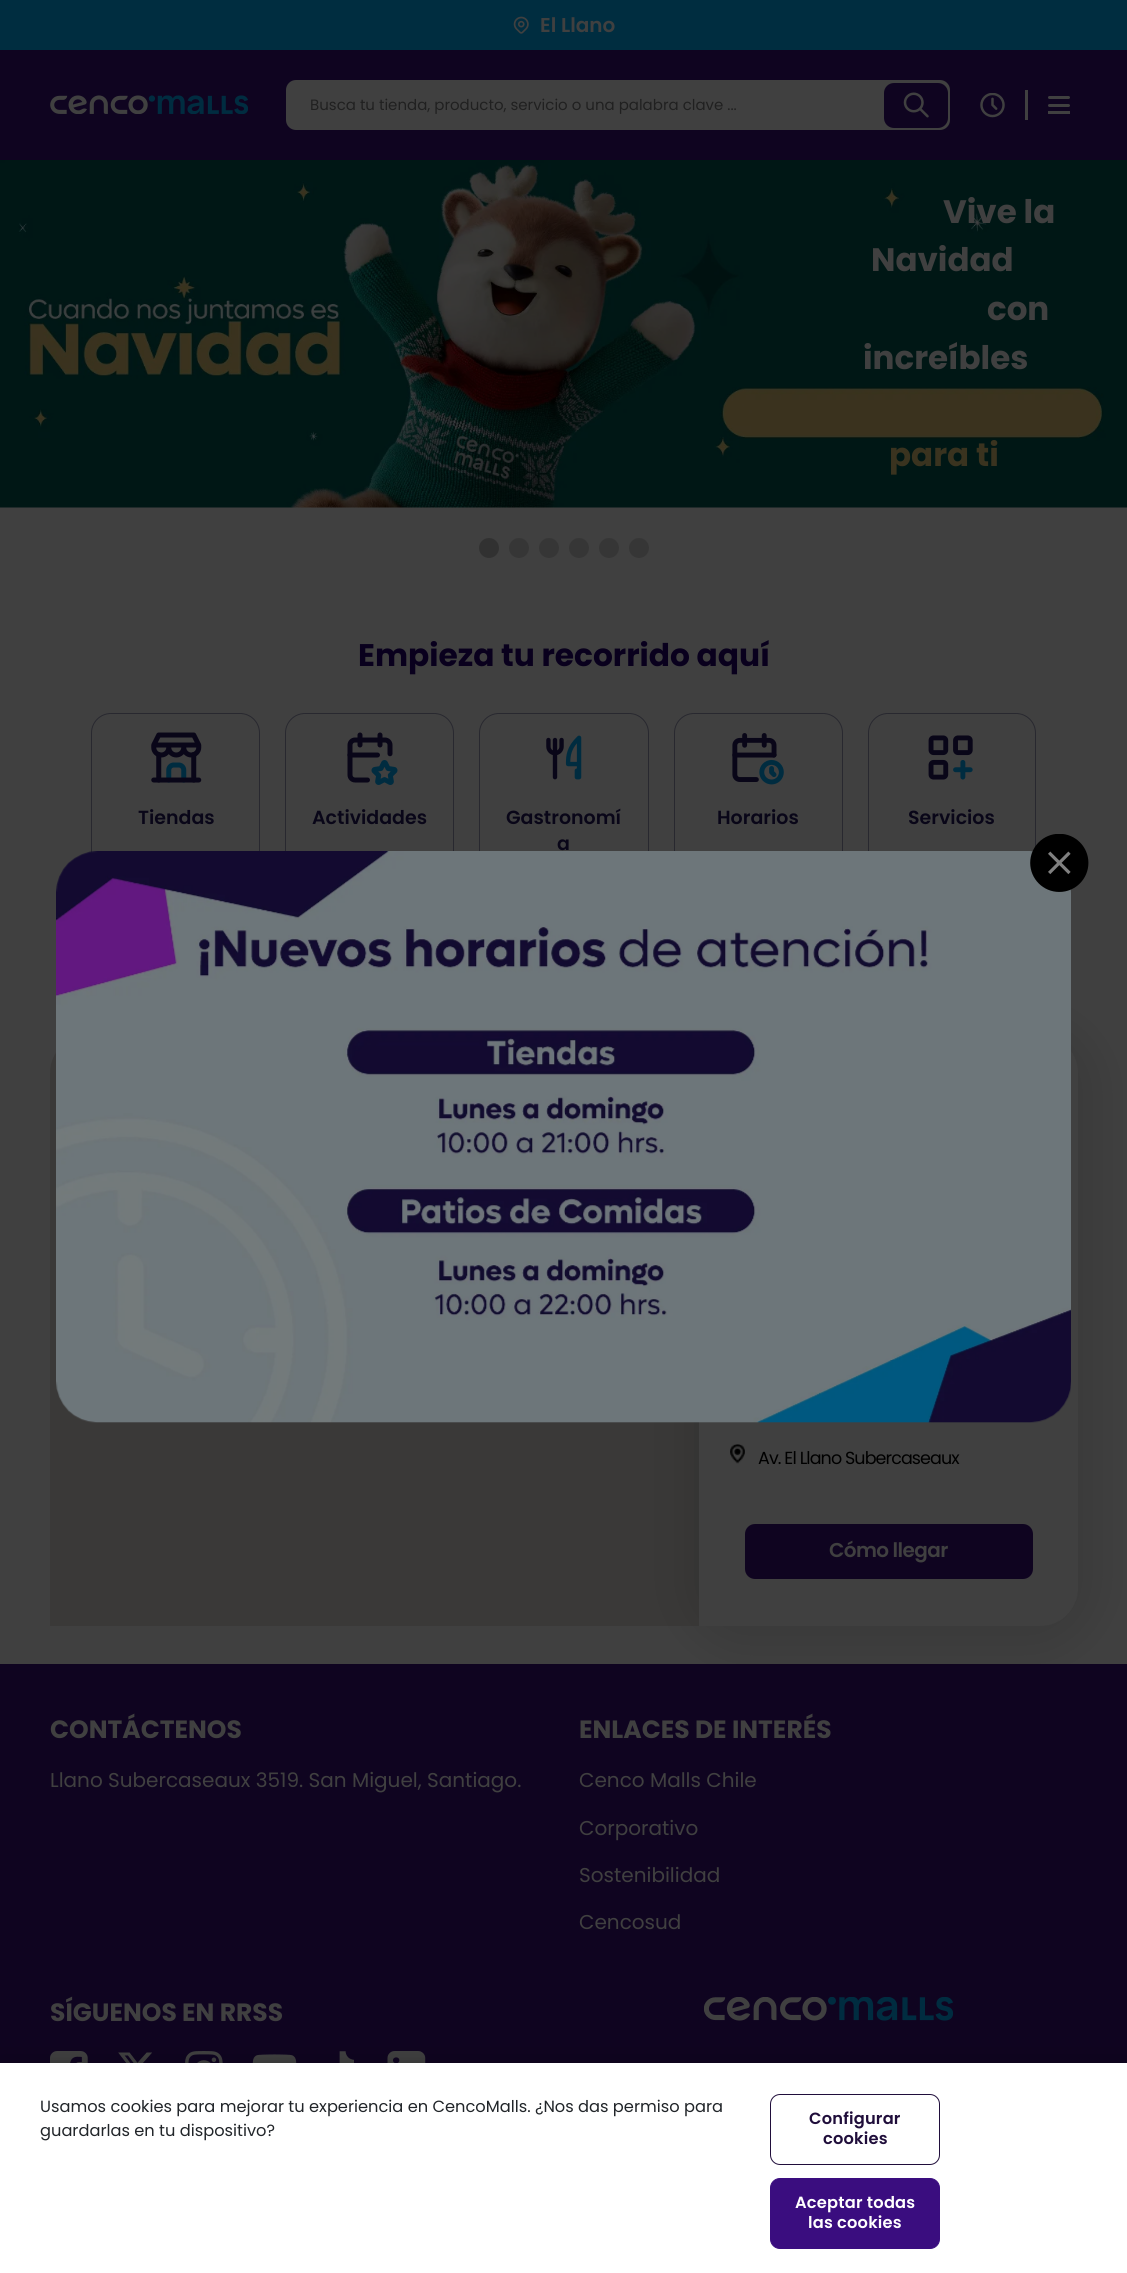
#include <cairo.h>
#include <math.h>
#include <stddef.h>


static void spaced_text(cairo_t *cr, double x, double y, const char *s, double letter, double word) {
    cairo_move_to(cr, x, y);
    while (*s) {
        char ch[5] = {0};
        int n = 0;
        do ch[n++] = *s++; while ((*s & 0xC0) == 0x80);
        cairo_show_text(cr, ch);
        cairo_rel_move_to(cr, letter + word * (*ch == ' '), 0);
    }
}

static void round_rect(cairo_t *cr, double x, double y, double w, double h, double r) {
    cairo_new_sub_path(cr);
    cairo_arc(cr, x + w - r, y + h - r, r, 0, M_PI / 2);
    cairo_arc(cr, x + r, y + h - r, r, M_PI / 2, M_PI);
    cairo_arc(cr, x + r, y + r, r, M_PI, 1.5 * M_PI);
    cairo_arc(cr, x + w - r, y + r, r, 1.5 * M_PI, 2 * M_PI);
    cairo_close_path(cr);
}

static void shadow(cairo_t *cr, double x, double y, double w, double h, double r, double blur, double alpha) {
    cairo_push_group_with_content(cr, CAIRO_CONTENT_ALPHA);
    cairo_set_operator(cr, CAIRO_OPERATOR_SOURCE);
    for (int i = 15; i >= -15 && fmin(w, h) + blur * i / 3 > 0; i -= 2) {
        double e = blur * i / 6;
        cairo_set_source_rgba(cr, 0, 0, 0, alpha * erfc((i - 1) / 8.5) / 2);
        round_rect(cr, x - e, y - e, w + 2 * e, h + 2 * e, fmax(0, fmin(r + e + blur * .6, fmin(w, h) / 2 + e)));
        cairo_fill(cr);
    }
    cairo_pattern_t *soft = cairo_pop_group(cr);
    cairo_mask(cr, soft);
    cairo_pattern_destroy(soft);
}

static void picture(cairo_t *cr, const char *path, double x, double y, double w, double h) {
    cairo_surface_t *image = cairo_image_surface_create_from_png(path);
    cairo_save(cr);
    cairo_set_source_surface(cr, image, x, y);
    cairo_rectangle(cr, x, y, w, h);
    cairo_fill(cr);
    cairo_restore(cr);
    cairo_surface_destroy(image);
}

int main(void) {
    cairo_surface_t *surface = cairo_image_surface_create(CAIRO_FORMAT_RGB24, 1127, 2273);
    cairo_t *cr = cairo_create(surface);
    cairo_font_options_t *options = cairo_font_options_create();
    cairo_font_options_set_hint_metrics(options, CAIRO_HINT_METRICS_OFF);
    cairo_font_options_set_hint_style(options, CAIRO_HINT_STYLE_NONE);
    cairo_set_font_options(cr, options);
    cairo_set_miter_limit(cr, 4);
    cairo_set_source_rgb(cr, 0.251, 0.251, 0.251);
    cairo_paint(cr);
    cairo_set_source_rgb(cr, 0, 0.176, 0.251);
    cairo_rectangle(cr, 0, 0, 1127, 50);
    cairo_fill(cr);
    picture(cr, "img1.png", 513, 16, 16, 18);
    cairo_select_font_face(cr, "Poppins SemiBold", CAIRO_FONT_SLANT_NORMAL, CAIRO_FONT_WEIGHT_NORMAL);
    cairo_set_font_size(cr, 20);
    cairo_set_source_rgb(cr, 0.251, 0.251, 0.251);
    cairo_move_to(cr, 540, 32);
    cairo_show_text(cr, "El Llano");
    cairo_set_source_rgb(cr, 0.059, 0.016, 0.125);
    cairo_rectangle(cr, 0, 50, 1127, 110);
    cairo_fill(cr);
    picture(cr, "img2.png", 50, 95, 198, 19);
    cairo_set_source_rgb(cr, 0.251, 0.251, 0.251);
    round_rect(cr, 286, 80, 664, 50, 10);
    cairo_fill(cr);
    cairo_select_font_face(cr, "Poppins", CAIRO_FONT_SLANT_NORMAL, CAIRO_FONT_WEIGHT_NORMAL);
    cairo_set_font_size(cr, 15);
    cairo_set_source_rgb(cr, 0.125, 0.125, 0.125);
    cairo_move_to(cr, 310, 110);
    cairo_show_text(cr, "Busca tu tienda, producto, servicio o una palabra clave ...");
    cairo_set_source_rgb(cr, 0.059, 0.016, 0.125);
    round_rect(cr, 884, 83, 64, 45, 10);
    cairo_fill(cr);
    picture(cr, "img3.png", 903, 92, 26, 26);
    picture(cr, "img4.png", 980, 93, 25, 25);
    cairo_set_source_rgb(cr, 0.251, 0.251, 0.251);
    cairo_rectangle(cr, 1025, 90, 3, 30);
    cairo_fill(cr);
    round_rect(cr, 1048, 96, 22, 3, 1.5);
    cairo_fill(cr);
    round_rect(cr, 1048, 104, 22, 3, 1.5);
    cairo_fill(cr);
    cairo_rectangle(cr, 1048, 111, 22, 3);
    cairo_fill(cr);
    picture(cr, "img5.png", 0, 160, 1127, 348);
    cairo_select_font_face(cr, "Poppins", CAIRO_FONT_SLANT_NORMAL, CAIRO_FONT_WEIGHT_BOLD);
    cairo_set_font_size(cr, 32.5);
    cairo_move_to(cr, 943, 223);
    cairo_show_text(cr, "Vive la");
    cairo_move_to(cr, 871, 271);
    cairo_show_text(cr, "Navidad");
    cairo_move_to(cr, 987, 320);
    cairo_show_text(cr, "con");
    cairo_move_to(cr, 863, 369);
    cairo_show_text(cr, "increíbles");
    cairo_set_source_rgb(cr, 0.227, 0.2, 0.122);
    cairo_move_to(cr, 889, 466);
    cairo_show_text(cr, "para ti");
    cairo_set_source_rgb(cr, 0.192, 0.192, 0.192);
    cairo_new_path(cr);
    cairo_arc(cr, 489, 548, 10, 0, 2 * M_PI);
    cairo_fill(cr);
    cairo_set_source_rgb(cr, 0.212, 0.212, 0.212);
    cairo_arc(cr, 519, 548, 10, 0, 2 * M_PI);
    cairo_fill(cr);
    cairo_arc(cr, 549, 548, 10, 0, 2 * M_PI);
    cairo_fill(cr);
    cairo_arc(cr, 579, 548, 10, 0, 2 * M_PI);
    cairo_fill(cr);
    cairo_arc(cr, 609, 548, 10, 0, 2 * M_PI);
    cairo_fill(cr);
    cairo_arc(cr, 639, 548, 10, 0, 2 * M_PI);
    cairo_fill(cr);
    cairo_set_font_size(cr, 31.25);
    cairo_set_source_rgb(cr, 0.039, 0, 0.114);
    cairo_move_to(cr, 358, 666);
    cairo_show_text(cr, "Empieza tu recorrido aquí");
    round_rect(cr, 91.5, 713.5, 168, 164, 19.5);
    cairo_set_source_rgb(cr, 0.157, 0.157, 0.184);
    cairo_set_line_width(cr, 1);
    cairo_stroke(cr);
    picture(cr, "img6.png", 151, 732, 51, 51);
    cairo_select_font_face(cr, "Poppins SemiBold", CAIRO_FONT_SLANT_NORMAL, CAIRO_FONT_WEIGHT_NORMAL);
    cairo_set_font_size(cr, 19);
    cairo_set_source_rgb(cr, 0.039, 0.024, 0.094);
    cairo_move_to(cr, 138, 824);
    cairo_show_text(cr, "Tiendas");
    round_rect(cr, 285.5, 713.5, 168, 164, 19.5);
    cairo_set_source_rgb(cr, 0.157, 0.157, 0.184);
    cairo_stroke(cr);
    picture(cr, "img7.png", 347, 732, 51, 53);
    cairo_set_source_rgb(cr, 0.039, 0.024, 0.094);
    cairo_move_to(cr, 312, 824);
    cairo_show_text(cr, "Actividades");
    round_rect(cr, 479.5, 713.5, 169, 164, 19.5);
    cairo_set_source_rgb(cr, 0.157, 0.157, 0.184);
    cairo_stroke(cr);
    picture(cr, "img8.png", 546, 735, 36, 45);
    cairo_set_source_rgb(cr, 0.039, 0.024, 0.094);
    cairo_move_to(cr, 506, 824);
    cairo_show_text(cr, "Gastronomí");
    cairo_move_to(cr, 557, 850);
    cairo_show_text(cr, "a");
    round_rect(cr, 674.5, 713.5, 168, 164, 19.5);
    cairo_set_source_rgb(cr, 0.157, 0.157, 0.184);
    cairo_stroke(cr);
    picture(cr, "img9.png", 732, 733, 52, 52);
    cairo_set_source_rgb(cr, 0.039, 0.024, 0.094);
    cairo_move_to(cr, 717, 824);
    cairo_show_text(cr, "Horarios");
    round_rect(cr, 868.5, 713.5, 167, 164, 19.5);
    cairo_set_source_rgb(cr, 0.157, 0.157, 0.184);
    cairo_stroke(cr);
    picture(cr, "img10.png", 928, 735, 45, 45);
    cairo_set_source_rgb(cr, 0.039, 0.024, 0.094);
    cairo_move_to(cr, 908, 824);
    cairo_show_text(cr, "Servicios");
    cairo_set_source_rgb(cr, 0.227, 0.224, 0.22);
    cairo_new_path(cr);
    cairo_move_to(cr, 88, 1035);
    cairo_line_to(cr, 699, 1035);
    cairo_line_to(cr, 699, 1626);
    cairo_line_to(cr, 50, 1626);
    cairo_line_to(cr, 50, 1073);
    cairo_curve_to(cr, 50, 1052, 67, 1035, 88, 1035);
    cairo_close_path(cr);
    cairo_fill(cr);
    cairo_set_source_rgb(cr, 0.059, 0.016, 0.125);
    cairo_rectangle(cr, 0, 1664, 1127, 399);
    cairo_fill(cr);
    cairo_set_source_rgb(cr, 0, 0, 0);
    shadow(cr, 699, 1040, 379, 591, 38, 30, 0.16);
    cairo_set_source_rgb(cr, 0.251, 0.251, 0.251);
    cairo_new_path(cr);
    cairo_move_to(cr, 699, 1035);
    cairo_line_to(cr, 1040, 1035);
    cairo_curve_to(cr, 1061, 1035, 1078, 1052, 1078, 1073);
    cairo_line_to(cr, 1078, 1588);
    cairo_curve_to(cr, 1078, 1609, 1061, 1626, 1040, 1626);
    cairo_line_to(cr, 699, 1626);
    cairo_close_path(cr);
    cairo_fill(cr);
    picture(cr, "img11.png", 730, 1444, 15, 20);
    cairo_select_font_face(cr, "Poppins", CAIRO_FONT_SLANT_NORMAL, CAIRO_FONT_WEIGHT_NORMAL);
    cairo_set_font_size(cr, 17.5);
    cairo_set_source_rgb(cr, 0, 0, 0);
    spaced_text(cr, 758, 1464, "Av. El Llano Subercaseaux", -0.9, 0);
    cairo_set_source_rgb(cr, 0.059, 0.016, 0.125);
    round_rect(cr, 745, 1524, 288, 55, 10);
    cairo_fill(cr);
    cairo_select_font_face(cr, "Poppins SemiBold", CAIRO_FONT_SLANT_NORMAL, CAIRO_FONT_WEIGHT_NORMAL);
    cairo_set_font_size(cr, 20);
    cairo_set_source_rgb(cr, 0.251, 0.251, 0.251);
    spaced_text(cr, 829, 1557, "Cómo llegar", -0.6, 0);
    cairo_select_font_face(cr, "Poppins", CAIRO_FONT_SLANT_NORMAL, CAIRO_FONT_WEIGHT_BOLD);
    cairo_set_font_size(cr, 25);
    cairo_move_to(cr, 50, 1738);
    cairo_show_text(cr, "CONTÁCTENOS");
    cairo_select_font_face(cr, "Poppins", CAIRO_FONT_SLANT_NORMAL, CAIRO_FONT_WEIGHT_NORMAL);
    cairo_set_font_size(cr, 20);
    cairo_move_to(cr, 50, 1787);
    cairo_show_text(cr, "Llano Subercaseaux 3519. San Miguel, Santiago.");
    cairo_select_font_face(cr, "Poppins", CAIRO_FONT_SLANT_NORMAL, CAIRO_FONT_WEIGHT_BOLD);
    cairo_set_font_size(cr, 25);
    cairo_move_to(cr, 579, 1738);
    cairo_show_text(cr, "ENLACES DE INTERÉS");
    cairo_select_font_face(cr, "Poppins", CAIRO_FONT_SLANT_NORMAL, CAIRO_FONT_WEIGHT_NORMAL);
    cairo_set_font_size(cr, 20);
    cairo_move_to(cr, 579, 1787);
    cairo_show_text(cr, "Cenco Malls Chile");
    cairo_move_to(cr, 579, 1835);
    cairo_show_text(cr, "Corporativo");
    cairo_move_to(cr, 579, 1882);
    cairo_show_text(cr, "Sostenibilidad");
    cairo_move_to(cr, 579, 1929);
    cairo_show_text(cr, "Cencosud");
    cairo_select_font_face(cr, "Poppins", CAIRO_FONT_SLANT_NORMAL, CAIRO_FONT_WEIGHT_BOLD);
    cairo_set_font_size(cr, 25);
    cairo_move_to(cr, 50, 2021);
    cairo_show_text(cr, "SÍGUENOS EN RRSS");
    picture(cr, "img12.png", 50, 2051, 38, 12);
    picture(cr, "img13.png", 118, 2052, 34, 11);
    picture(cr, "img14.png", 185, 2051, 38, 12);
    picture(cr, "img15.png", 252, 2054, 45, 9);
    picture(cr, "img16.png", 339, 2051, 15, 12);
    picture(cr, "img17.png", 387, 2051, 39, 12);
    picture(cr, "img18.png", 704, 1997, 249, 24);
    picture(cr, "img20.png", 56, 851, 1015, 572);
    picture(cr, "img19.png", 1030, 834, 59, 58);
    cairo_set_source_rgb(cr, 0, 0, 0);
    shadow(cr, 0, 2063, 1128, 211, 0, 11, 0.2);
    cairo_set_source_rgb(cr, 1, 1, 1);
    cairo_rectangle(cr, 0, 2063, 1127, 210);
    cairo_fill(cr);
    cairo_select_font_face(cr, "Poppins", CAIRO_FONT_SLANT_NORMAL, CAIRO_FONT_WEIGHT_NORMAL);
    cairo_set_font_size(cr, 16.25);
    cairo_set_source_rgb(cr, 0.129, 0.145, 0.161);
    cairo_move_to(cr, 40, 2112);
    cairo_show_text(cr, "Usamos cookies para mejorar tu experiencia en CencoMalls. ¿Nos das permiso para");
    cairo_move_to(cr, 40, 2136);
    cairo_show_text(cr, "guardarlas en tu dispositivo?");
    round_rect(cr, 770.5, 2094.5, 169, 70, 9.5);
    cairo_set_source_rgb(cr, 0.125, 0.055, 0.231);
    cairo_stroke(cr);
    cairo_select_font_face(cr, "Poppins SemiBold", CAIRO_FONT_SLANT_NORMAL, CAIRO_FONT_WEIGHT_NORMAL);
    spaced_text(cr, 809, 2124, "Configurar", 0.2, 0);
    spaced_text(cr, 823, 2144, "cookies", 0.2, 0);
    cairo_set_source_rgb(cr, 0.227, 0.051, 0.498);
    round_rect(cr, 770.5, 2178.5, 169, 70, 9.5);
    cairo_fill_preserve(cr);
    cairo_stroke(cr);
    cairo_set_source_rgb(cr, 1, 1, 1);
    spaced_text(cr, 795, 2208, "Aceptar todas", 0.2, 0);
    spaced_text(cr, 808, 2228, "las cookies", 0.2, 0);
    cairo_surface_write_to_png(surface, "page.png");
    cairo_font_options_destroy(options);
    cairo_destroy(cr);
    cairo_surface_destroy(surface);
    return 0;
}
